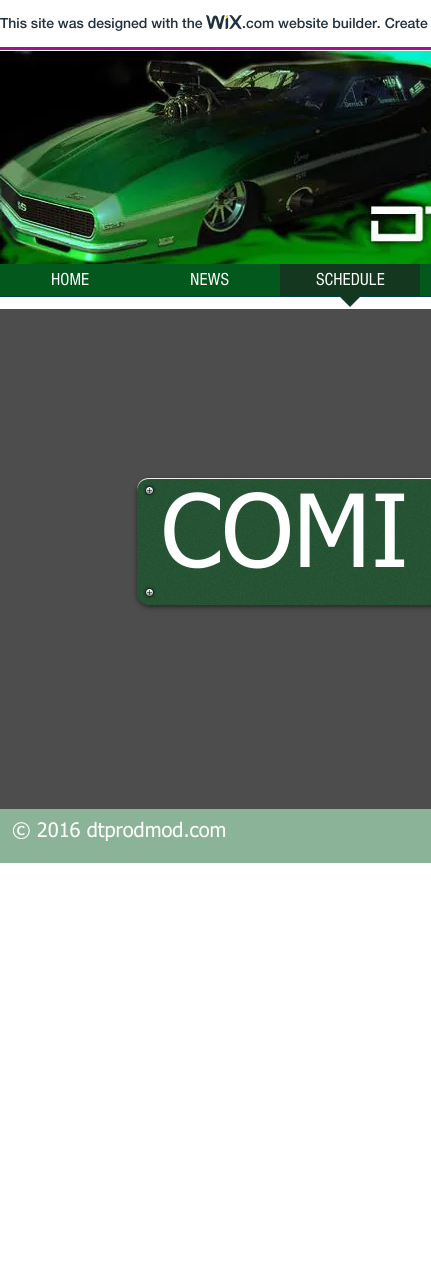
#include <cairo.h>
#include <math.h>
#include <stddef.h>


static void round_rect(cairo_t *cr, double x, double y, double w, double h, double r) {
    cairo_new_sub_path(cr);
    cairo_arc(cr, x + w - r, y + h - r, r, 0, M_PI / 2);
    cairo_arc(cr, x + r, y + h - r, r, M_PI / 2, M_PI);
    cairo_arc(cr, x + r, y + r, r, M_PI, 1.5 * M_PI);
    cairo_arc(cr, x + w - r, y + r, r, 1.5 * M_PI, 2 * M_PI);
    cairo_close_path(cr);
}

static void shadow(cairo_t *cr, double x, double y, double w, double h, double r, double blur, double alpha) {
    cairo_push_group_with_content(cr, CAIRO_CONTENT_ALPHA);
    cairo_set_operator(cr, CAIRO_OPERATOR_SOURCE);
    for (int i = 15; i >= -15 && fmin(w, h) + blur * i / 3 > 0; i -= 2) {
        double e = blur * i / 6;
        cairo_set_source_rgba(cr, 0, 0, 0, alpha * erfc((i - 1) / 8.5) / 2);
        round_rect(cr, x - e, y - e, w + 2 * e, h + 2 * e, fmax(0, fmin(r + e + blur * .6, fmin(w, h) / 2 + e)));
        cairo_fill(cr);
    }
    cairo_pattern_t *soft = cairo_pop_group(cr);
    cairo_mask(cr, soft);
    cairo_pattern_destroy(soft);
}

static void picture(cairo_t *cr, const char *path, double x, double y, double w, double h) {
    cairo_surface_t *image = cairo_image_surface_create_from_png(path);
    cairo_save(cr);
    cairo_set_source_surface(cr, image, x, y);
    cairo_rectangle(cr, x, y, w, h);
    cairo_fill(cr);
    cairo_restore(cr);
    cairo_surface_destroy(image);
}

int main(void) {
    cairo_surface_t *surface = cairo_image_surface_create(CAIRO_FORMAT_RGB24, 431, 1280);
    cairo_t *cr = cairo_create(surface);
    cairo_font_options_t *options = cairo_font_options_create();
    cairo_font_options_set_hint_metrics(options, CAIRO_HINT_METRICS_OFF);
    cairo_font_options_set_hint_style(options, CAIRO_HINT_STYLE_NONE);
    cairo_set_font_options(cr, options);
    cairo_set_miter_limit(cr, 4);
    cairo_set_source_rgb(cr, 1, 1, 1);
    cairo_paint(cr);
    cairo_set_source_rgb(cr, 0.627, 0.075, 0.557);
    cairo_rectangle(cr, 0, 47, 431, 3);
    cairo_fill(cr);
    cairo_select_font_face(cr, "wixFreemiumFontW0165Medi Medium", CAIRO_FONT_SLANT_NORMAL, CAIRO_FONT_WEIGHT_NORMAL);
    cairo_set_font_size(cr, 14);
    cairo_set_source_rgb(cr, 0.125, 0.188, 0.235);
    cairo_move_to(cr, 0, 28);
    cairo_show_text(cr, "This site was designed with the");
    picture(cr, "img1.png", 206, 15, 36, 15);
    cairo_move_to(cr, 242, 28);
    cairo_show_text(cr, ".com website builder. Create");
    picture(cr, "img2.png", 0, 51, 431, 213);
    cairo_set_source_rgb(cr, 0.012, 0.349, 0.114);
    cairo_rectangle(cr, 0, 264, 431, 32);
    cairo_fill(cr);
    cairo_set_source_rgb(cr, 0, 0.247, 0.267);
    cairo_rectangle(cr, 0, 296, 431, 1);
    cairo_fill(cr);
    cairo_select_font_face(cr, "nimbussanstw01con", CAIRO_FONT_SLANT_NORMAL, CAIRO_FONT_WEIGHT_NORMAL);
    cairo_set_font_size(cr, 18);
    cairo_set_source_rgb(cr, 1, 1, 1);
    cairo_move_to(cr, 51, 285);
    cairo_show_text(cr, "HOME");
    cairo_move_to(cr, 190, 285);
    cairo_show_text(cr, "NEWS");
    cairo_set_source_rgb(cr, 0.082, 0.22, 0.122);
    cairo_rectangle(cr, 280, 264, 140, 32);
    cairo_fill(cr);
    cairo_set_source_rgb(cr, 1, 1, 1);
    cairo_move_to(cr, 316, 285);
    cairo_show_text(cr, "SCHEDULE");
    cairo_set_source_rgb(cr, 0, 0.247, 0.267);
    cairo_new_path(cr);
    cairo_move_to(cr, 339, 296);
    cairo_line_to(cr, 361, 296);
    cairo_line_to(cr, 350, 307);
    cairo_close_path(cr);
    cairo_fill(cr);
    cairo_set_source_rgb(cr, 0.082, 0.22, 0.122);
    cairo_new_path(cr);
    cairo_move_to(cr, 340, 296);
    cairo_line_to(cr, 360, 296);
    cairo_line_to(cr, 350, 306);
    cairo_close_path(cr);
    cairo_fill(cr);
    cairo_set_source_rgb(cr, 0.302, 0.302, 0.302);
    cairo_rectangle(cr, 0, 309, 431, 500);
    cairo_fill(cr);
    cairo_save(cr);
    cairo_set_fill_rule(cr, CAIRO_FILL_RULE_EVEN_ODD);
    cairo_new_path(cr);
    cairo_move_to(cr, 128, 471);
    cairo_line_to(cr, 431, 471);
    cairo_line_to(cr, 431, 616);
    cairo_line_to(cr, 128, 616);
    cairo_close_path(cr);
    cairo_move_to(cr, 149, 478);
    cairo_line_to(cr, 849, 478);
    cairo_curve_to(cr, 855.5, 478, 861, 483.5, 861, 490);
    cairo_line_to(cr, 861, 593);
    cairo_curve_to(cr, 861, 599.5, 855.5, 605, 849, 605);
    cairo_line_to(cr, 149, 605);
    cairo_curve_to(cr, 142.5, 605, 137, 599.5, 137, 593);
    cairo_line_to(cr, 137, 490);
    cairo_curve_to(cr, 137, 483.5, 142.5, 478, 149, 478);
    cairo_close_path(cr);
    cairo_clip(cr);
    cairo_set_source_rgb(cr, 0, 0, 0);
    shadow(cr, 137, 480, 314, 127, 12, 2.5, 0.53);
    cairo_restore(cr);
    cairo_set_source_rgba(cr, 0.012, 0.349, 0.114, 0.55);
    round_rect(cr, 137, 478, 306, 127, 12);
    cairo_fill(cr);
    picture(cr, "img3.png", 137, 478, 294, 127);
    cairo_set_source_rgba(cr, 1, 1, 1, 0.92);
    cairo_new_path(cr);
    cairo_move_to(cr, 149, 479);
    cairo_line_to(cr, 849, 479);
    cairo_curve_to(cr, 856, 479, 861, 484, 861, 491);
    cairo_line_to(cr, 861, 490);
    cairo_curve_to(cr, 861, 483, 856, 478, 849, 478);
    cairo_line_to(cr, 149, 478);
    cairo_curve_to(cr, 142, 478, 137, 483, 137, 490);
    cairo_line_to(cr, 137, 491);
    cairo_curve_to(cr, 137, 484, 142, 479, 149, 479);
    cairo_close_path(cr);
    cairo_fill(cr);
    picture(cr, "img4.png", 143, 484, 13, 13);
    cairo_select_font_face(cr, "tahoma", CAIRO_FONT_SLANT_NORMAL, CAIRO_FONT_WEIGHT_NORMAL);
    cairo_set_font_size(cr, 101);
    cairo_set_source_rgb(cr, 1, 1, 1);
    cairo_move_to(cr, 161, 567);
    cairo_show_text(cr, "COMI");
    picture(cr, "img5.png", 143, 586, 13, 13);
    cairo_set_source_rgb(cr, 0.545, 0.702, 0.592);
    cairo_rectangle(cr, 0, 809, 431, 54);
    cairo_fill(cr);
    cairo_set_font_size(cr, 20);
    cairo_set_source_rgb(cr, 1, 1, 1);
    cairo_move_to(cr, 12, 837);
    cairo_show_text(cr, "© 2016 dtprodmod.com");
    cairo_surface_write_to_png(surface, "page.png");
    cairo_font_options_destroy(options);
    cairo_destroy(cr);
    cairo_surface_destroy(surface);
    return 0;
}
